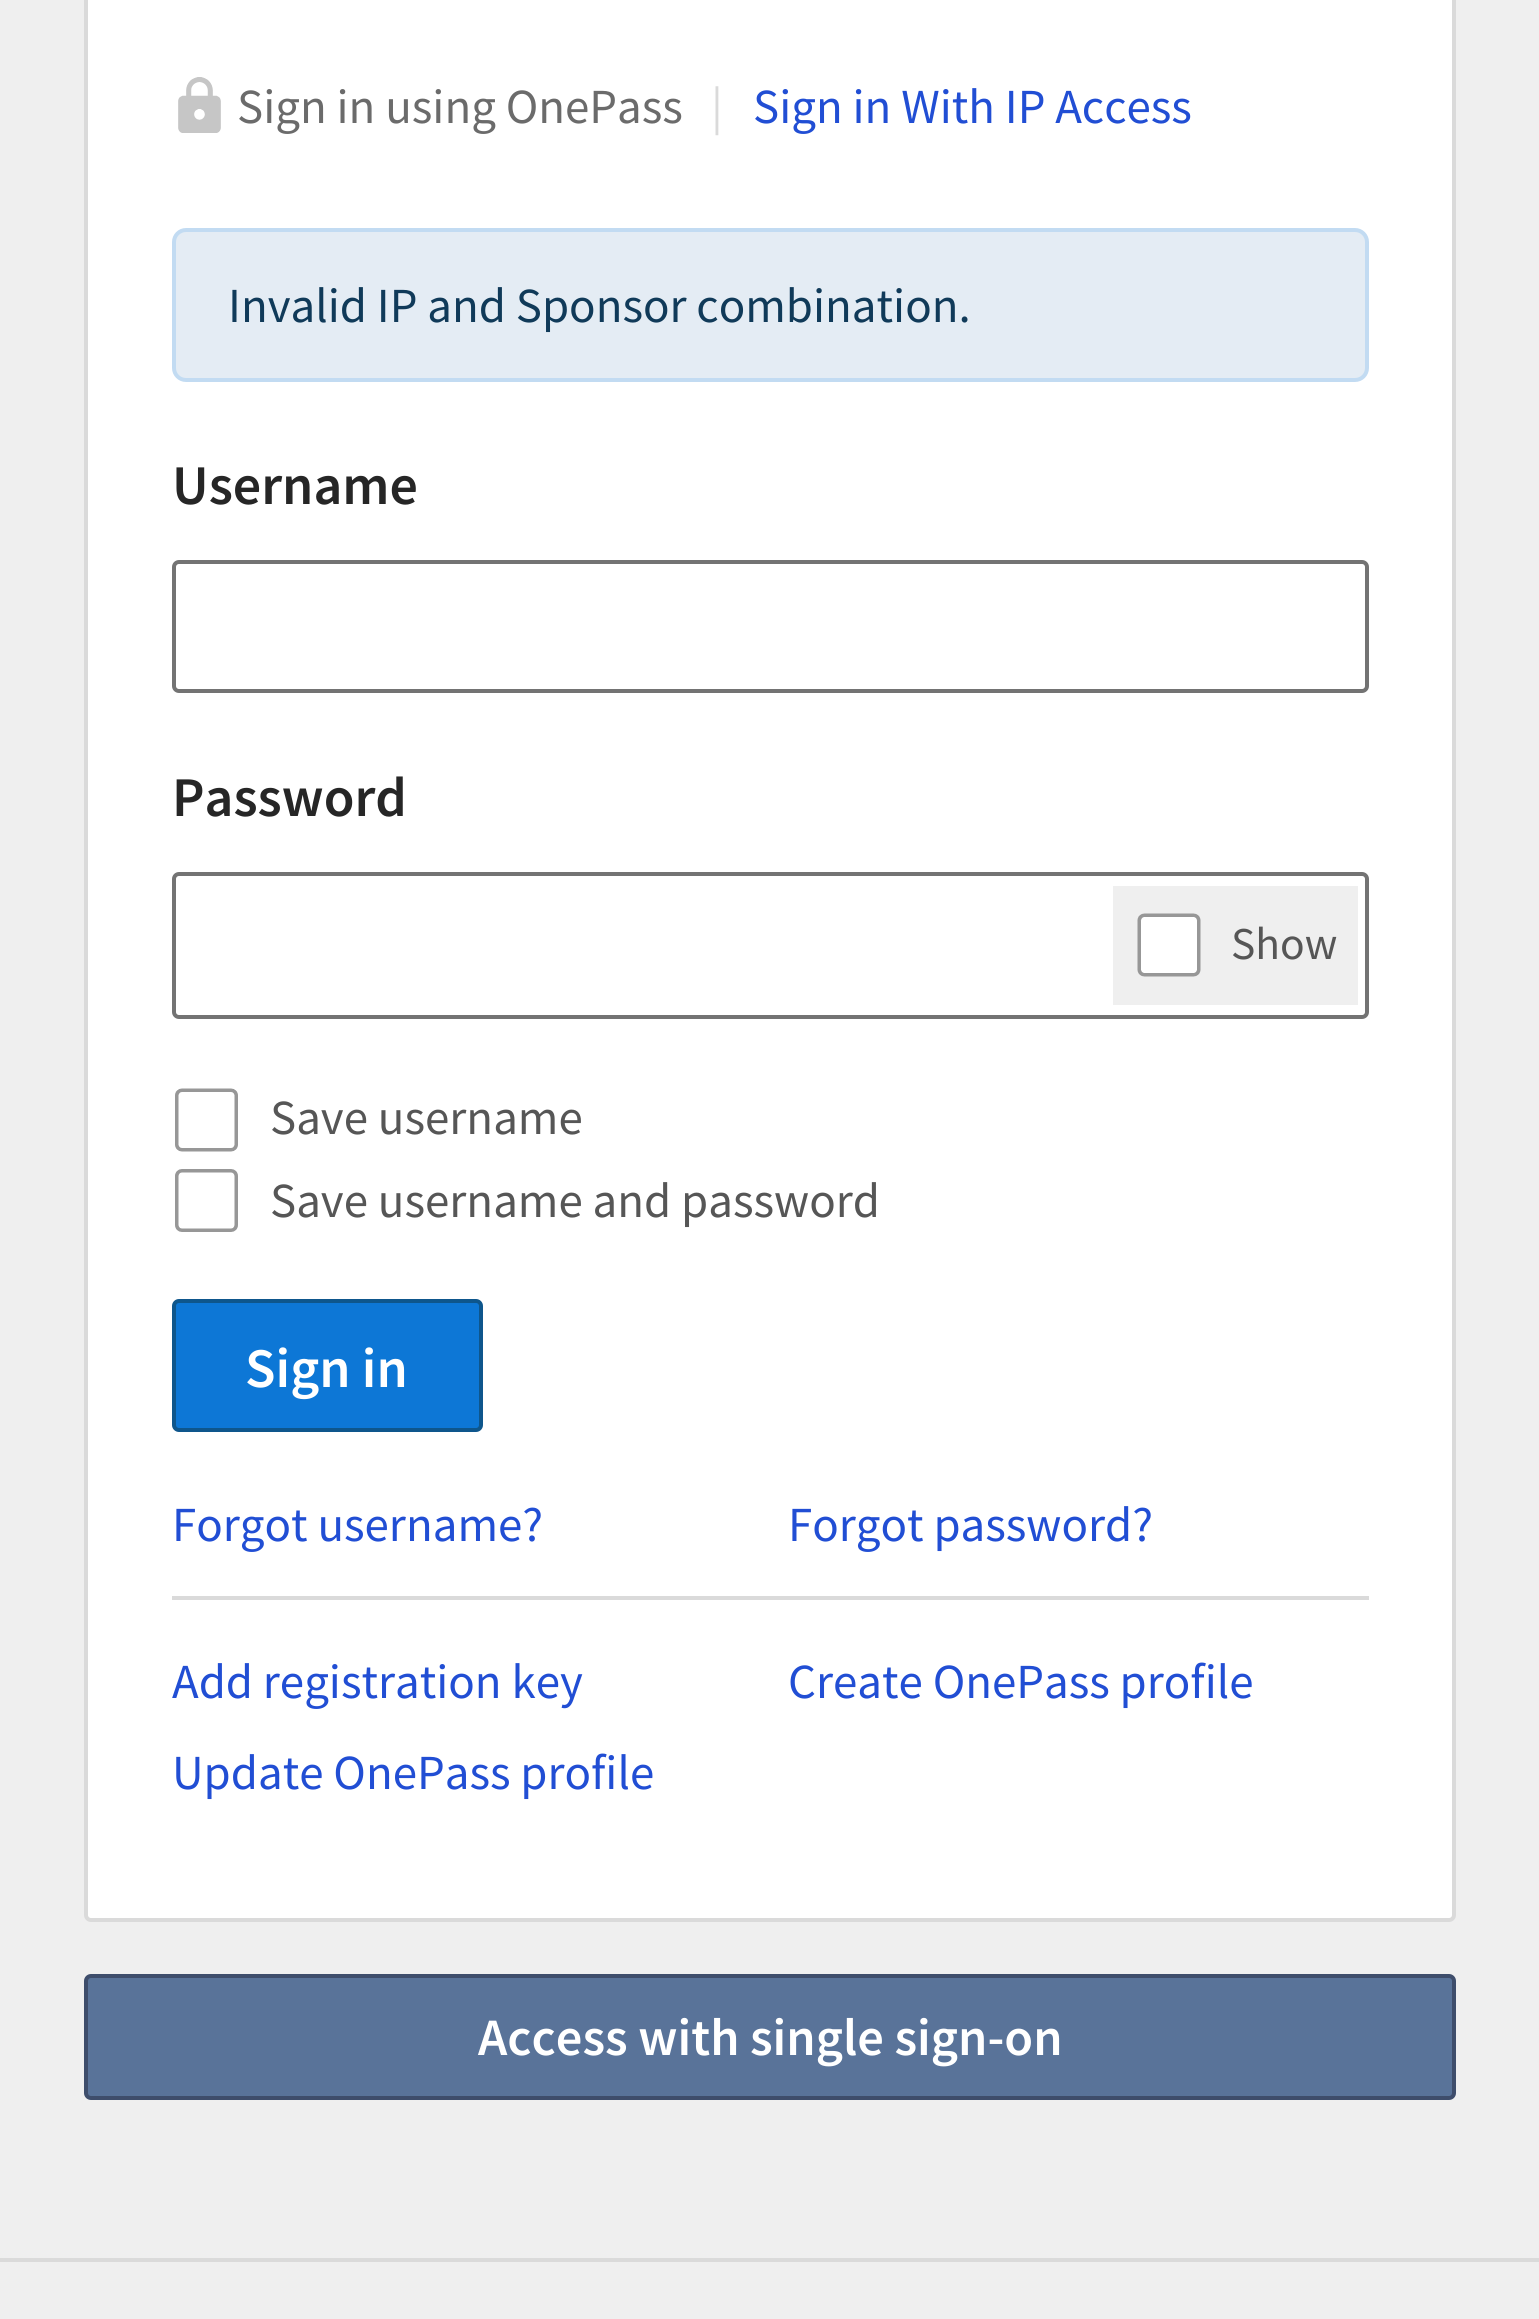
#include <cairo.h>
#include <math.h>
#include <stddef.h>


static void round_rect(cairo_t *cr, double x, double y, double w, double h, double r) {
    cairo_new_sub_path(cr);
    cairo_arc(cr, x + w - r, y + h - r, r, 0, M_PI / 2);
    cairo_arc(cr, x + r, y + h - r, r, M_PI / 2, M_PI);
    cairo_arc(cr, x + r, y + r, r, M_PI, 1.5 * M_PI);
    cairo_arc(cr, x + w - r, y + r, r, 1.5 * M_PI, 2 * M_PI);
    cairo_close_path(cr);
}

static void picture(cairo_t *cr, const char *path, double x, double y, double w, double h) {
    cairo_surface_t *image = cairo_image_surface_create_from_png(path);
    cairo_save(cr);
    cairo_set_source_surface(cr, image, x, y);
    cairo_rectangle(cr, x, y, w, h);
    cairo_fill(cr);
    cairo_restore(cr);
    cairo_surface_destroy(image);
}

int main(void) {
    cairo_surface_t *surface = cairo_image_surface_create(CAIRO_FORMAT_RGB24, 1539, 2319);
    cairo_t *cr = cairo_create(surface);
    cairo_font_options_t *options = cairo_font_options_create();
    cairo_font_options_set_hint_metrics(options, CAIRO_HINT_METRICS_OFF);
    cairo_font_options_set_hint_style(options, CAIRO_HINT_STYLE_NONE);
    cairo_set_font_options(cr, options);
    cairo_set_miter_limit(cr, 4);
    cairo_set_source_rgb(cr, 0.937, 0.937, 0.937);
    cairo_paint(cr);
    cairo_set_source_rgb(cr, 1, 1, 1);
    round_rect(cr, 86, -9, 1368, 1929, 5);
    cairo_fill_preserve(cr);
    cairo_set_source_rgb(cr, 0.855, 0.855, 0.855);
    cairo_set_line_width(cr, 4);
    cairo_stroke(cr);
    picture(cr, "img1.png", 178, 77, 43, 56);
    cairo_select_font_face(cr, "Source Sans Pro", CAIRO_FONT_SLANT_NORMAL, CAIRO_FONT_WEIGHT_NORMAL);
    cairo_set_font_size(cr, 49);
    cairo_set_source_rgb(cr, 0.42, 0.42, 0.42);
    cairo_move_to(cr, 237, 123);
    cairo_show_text(cr, "Sign in using OnePass");
    cairo_set_source_rgb(cr, 0.855, 0.855, 0.855);
    cairo_move_to(cr, 711, 123);
    cairo_show_text(cr, "|");
    cairo_set_source_rgb(cr, 0.129, 0.306, 0.831);
    cairo_move_to(cr, 753, 123);
    cairo_show_text(cr, "Sign in With IP Access");
    cairo_set_source_rgb(cr, 0.894, 0.925, 0.957);
    round_rect(cr, 174, 230, 1193, 150, 12);
    cairo_fill_preserve(cr);
    cairo_set_source_rgb(cr, 0.761, 0.859, 0.949);
    cairo_stroke(cr);
    cairo_set_source_rgb(cr, 0.063, 0.227, 0.349);
    cairo_move_to(cr, 228, 322);
    cairo_show_text(cr, "Invalid IP and Sponsor combination.");
    cairo_select_font_face(cr, "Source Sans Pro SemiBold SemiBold", CAIRO_FONT_SLANT_NORMAL, CAIRO_FONT_WEIGHT_NORMAL);
    cairo_set_font_size(cr, 56);
    cairo_set_source_rgb(cr, 0.149, 0.149, 0.149);
    cairo_move_to(cr, 172, 504);
    cairo_show_text(cr, "Username");
    round_rect(cr, 174, 562, 1193, 129, 5);
    cairo_set_source_rgb(cr, 0.451, 0.451, 0.451);
    cairo_stroke(cr);
    cairo_set_source_rgb(cr, 0.149, 0.149, 0.149);
    cairo_move_to(cr, 172, 816);
    cairo_show_text(cr, "Password");
    round_rect(cr, 174, 874, 1193, 143, 5);
    cairo_set_source_rgb(cr, 0.451, 0.451, 0.451);
    cairo_stroke(cr);
    cairo_set_source_rgb(cr, 0.937, 0.937, 0.937);
    cairo_rectangle(cr, 1113, 886, 245, 119);
    cairo_fill(cr);
    picture(cr, "img2.png", 1137, 913, 64, 64);
    cairo_select_font_face(cr, "Source Sans Pro", CAIRO_FONT_SLANT_NORMAL, CAIRO_FONT_WEIGHT_NORMAL);
    cairo_set_font_size(cr, 45.5);
    cairo_set_source_rgb(cr, 0.337, 0.337, 0.337);
    cairo_move_to(cr, 1231, 959);
    cairo_show_text(cr, "Show");
    picture(cr, "img3.png", 175, 1088, 63, 64);
    cairo_set_font_size(cr, 49);
    cairo_move_to(cr, 270, 1134);
    cairo_show_text(cr, "Save username");
    picture(cr, "img4.png", 175, 1169, 63, 63);
    cairo_move_to(cr, 270, 1217);
    cairo_show_text(cr, "Save username and password");
    cairo_set_source_rgb(cr, 0.051, 0.467, 0.839);
    round_rect(cr, 174, 1301, 307, 129, 5);
    cairo_fill_preserve(cr);
    cairo_set_source_rgb(cr, 0.055, 0.337, 0.549);
    cairo_stroke(cr);
    cairo_select_font_face(cr, "Source Sans Pro SemiBold SemiBold", CAIRO_FONT_SLANT_NORMAL, CAIRO_FONT_WEIGHT_NORMAL);
    cairo_set_font_size(cr, 56);
    cairo_set_source_rgb(cr, 1, 1, 1);
    cairo_move_to(cr, 245, 1387);
    cairo_show_text(cr, "Sign in");
    cairo_select_font_face(cr, "Source Sans Pro", CAIRO_FONT_SLANT_NORMAL, CAIRO_FONT_WEIGHT_NORMAL);
    cairo_set_font_size(cr, 49);
    cairo_set_source_rgb(cr, 0.129, 0.306, 0.831);
    cairo_move_to(cr, 172, 1541);
    cairo_show_text(cr, "Forgot username?");
    cairo_move_to(cr, 788, 1541);
    cairo_show_text(cr, "Forgot password?");
    cairo_set_source_rgb(cr, 0.855, 0.855, 0.855);
    cairo_rectangle(cr, 172, 1596, 1197, 4);
    cairo_fill(cr);
    cairo_set_source_rgb(cr, 0.129, 0.306, 0.831);
    cairo_move_to(cr, 172, 1698);
    cairo_show_text(cr, "Add registration key");
    cairo_move_to(cr, 788, 1698);
    cairo_show_text(cr, "Create OnePass profile");
    cairo_move_to(cr, 172, 1789);
    cairo_show_text(cr, "Update OnePass profile");
    cairo_set_source_rgb(cr, 0.349, 0.451, 0.6);
    round_rect(cr, 86, 1976, 1368, 122, 5);
    cairo_fill_preserve(cr);
    cairo_set_source_rgb(cr, 0.243, 0.302, 0.42);
    cairo_stroke(cr);
    cairo_select_font_face(cr, "Source Sans Pro SemiBold SemiBold", CAIRO_FONT_SLANT_NORMAL, CAIRO_FONT_WEIGHT_NORMAL);
    cairo_set_font_size(cr, 52.5);
    cairo_set_source_rgb(cr, 1, 1, 1);
    cairo_move_to(cr, 478, 2055);
    cairo_show_text(cr, "Access with single sign-on");
    cairo_set_source_rgb(cr, 0.855, 0.855, 0.855);
    cairo_rectangle(cr, 0, 2258, 1539, 4);
    cairo_fill(cr);
    cairo_surface_write_to_png(surface, "page.png");
    cairo_font_options_destroy(options);
    cairo_destroy(cr);
    cairo_surface_destroy(surface);
    return 0;
}
